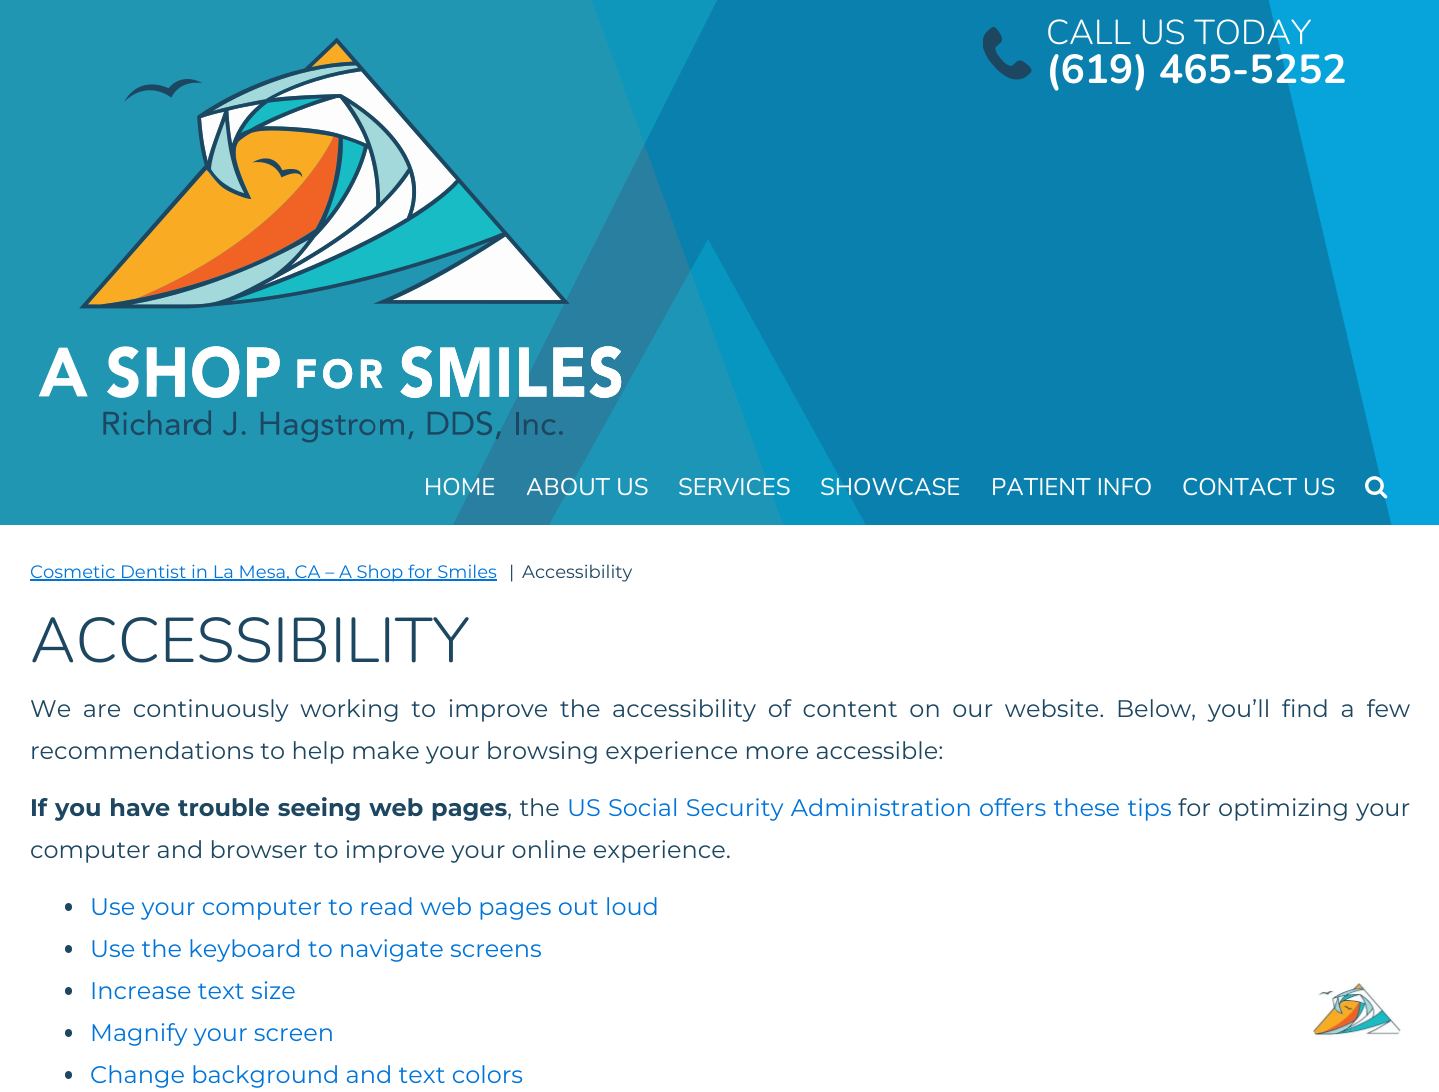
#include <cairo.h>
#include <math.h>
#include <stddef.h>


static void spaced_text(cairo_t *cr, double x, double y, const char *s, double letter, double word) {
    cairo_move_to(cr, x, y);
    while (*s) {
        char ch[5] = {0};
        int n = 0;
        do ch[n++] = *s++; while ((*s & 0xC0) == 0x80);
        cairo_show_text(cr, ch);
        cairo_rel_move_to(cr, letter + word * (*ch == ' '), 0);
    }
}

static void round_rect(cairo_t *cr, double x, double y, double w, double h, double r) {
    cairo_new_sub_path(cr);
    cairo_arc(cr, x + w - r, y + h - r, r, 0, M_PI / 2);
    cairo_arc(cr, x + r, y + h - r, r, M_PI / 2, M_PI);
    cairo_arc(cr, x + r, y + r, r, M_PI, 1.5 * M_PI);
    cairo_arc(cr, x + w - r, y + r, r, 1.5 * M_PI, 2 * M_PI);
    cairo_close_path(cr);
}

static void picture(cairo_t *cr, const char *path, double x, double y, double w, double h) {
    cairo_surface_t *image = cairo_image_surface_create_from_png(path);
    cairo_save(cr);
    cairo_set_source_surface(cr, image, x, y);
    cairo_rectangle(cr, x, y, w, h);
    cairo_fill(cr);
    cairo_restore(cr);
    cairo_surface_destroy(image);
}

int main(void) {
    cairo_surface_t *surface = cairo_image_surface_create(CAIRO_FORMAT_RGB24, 1439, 1092);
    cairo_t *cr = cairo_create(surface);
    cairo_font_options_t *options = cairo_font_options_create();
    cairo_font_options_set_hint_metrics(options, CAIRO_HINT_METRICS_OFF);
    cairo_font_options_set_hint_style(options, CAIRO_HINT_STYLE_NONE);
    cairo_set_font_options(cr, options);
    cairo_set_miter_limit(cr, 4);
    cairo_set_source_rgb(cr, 1, 1, 1);
    cairo_paint(cr);
    cairo_set_source_rgb(cr, 0.027, 0.643, 0.859);
    cairo_rectangle(cr, 1268, 0, 171, 525);
    cairo_fill(cr);
    cairo_save(cr);
    cairo_rectangle(cr, 0, 0, 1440, 525);
    cairo_clip(cr);
    cairo_set_source_rgb(cr, 0.039, 0.502, 0.678);
    cairo_new_path(cr);
    cairo_move_to(cr, 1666, 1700);
    cairo_line_to(cr, 767, 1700);
    cairo_line_to(cr, -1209, -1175);
    cairo_line_to(cr, 994, -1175);
    cairo_close_path(cr);
    cairo_fill(cr);
    cairo_restore(cr);
    picture(cr, "img1.png", 983, 27, 49, 53);
    cairo_select_font_face(cr, "Nunito Light", CAIRO_FONT_SLANT_NORMAL, CAIRO_FONT_WEIGHT_NORMAL);
    cairo_set_font_size(cr, 34.5);
    cairo_set_source_rgb(cr, 1, 1, 1);
    cairo_move_to(cr, 1046, 44);
    cairo_show_text(cr, "CALL US TODAY");
    cairo_select_font_face(cr, "Nunito", CAIRO_FONT_SLANT_NORMAL, CAIRO_FONT_WEIGHT_BOLD);
    cairo_set_font_size(cr, 40.5);
    cairo_move_to(cr, 1046, 83);
    cairo_show_text(cr, "(619) 465-5252");
    cairo_save(cr);
    cairo_rectangle(cr, 0, 0, 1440, 525);
    cairo_clip(cr);
    cairo_set_source_rgb(cr, 0.161, 0.498, 0.627);
    cairo_new_path(cr);
    cairo_move_to(cr, 163, -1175);
    cairo_line_to(cr, -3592, -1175);
    cairo_line_to(cr, -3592, 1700);
    cairo_line_to(cr, 1212, 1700);
    cairo_close_path(cr);
    cairo_fill(cr);
    cairo_set_source_rgba(cr, 0.09, 0.722, 0.808, 0.41);
    cairo_new_path(cr);
    cairo_move_to(cr, -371, 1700);
    cairo_line_to(cr, -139, 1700);
    cairo_line_to(cr, 1309, -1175);
    cairo_line_to(cr, -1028, -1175);
    cairo_close_path(cr);
    cairo_fill(cr);
    cairo_set_source_rgba(cr, 0, 0.788, 0.922, 0.3);
    cairo_new_path(cr);
    cairo_move_to(cr, 708, 239);
    cairo_line_to(cr, 461, 683);
    cairo_line_to(cr, 953, 683);
    cairo_close_path(cr);
    cairo_fill(cr);
    cairo_restore(cr);
    picture(cr, "img2.png", 38, 38, 584, 405);
    cairo_select_font_face(cr, "Nunito", CAIRO_FONT_SLANT_NORMAL, CAIRO_FONT_WEIGHT_NORMAL);
    cairo_set_font_size(cr, 24);
    cairo_move_to(cr, 424, 495);
    cairo_show_text(cr, "HOME");
    cairo_move_to(cr, 526, 495);
    cairo_show_text(cr, "ABOUT US");
    cairo_move_to(cr, 678, 495);
    cairo_show_text(cr, "SERVICES");
    cairo_move_to(cr, 820, 495);
    cairo_show_text(cr, "SHOWCASE");
    cairo_move_to(cr, 991, 495);
    cairo_show_text(cr, "PATIENT INFO");
    cairo_move_to(cr, 1182, 495);
    cairo_show_text(cr, "CONTACT US");
    picture(cr, "img3.png", 1365, 476, 23, 23);
    cairo_set_source_rgb(cr, 0, 0.455, 0.851);
    cairo_rectangle(cr, 30, 579, 467, 2);
    cairo_fill(cr);
    cairo_select_font_face(cr, "Montserrat", CAIRO_FONT_SLANT_NORMAL, CAIRO_FONT_WEIGHT_NORMAL);
    cairo_set_font_size(cr, 18);
    cairo_move_to(cr, 30, 578);
    cairo_show_text(cr, "Cosmetic Dentist in La Mesa, CA – A Shop for Smiles");
    cairo_set_source_rgb(cr, 0.114, 0.275, 0.376);
    cairo_move_to(cr, 509, 578);
    cairo_show_text(cr, "|");
    cairo_move_to(cr, 522, 578);
    cairo_show_text(cr, "Accessibility");
    cairo_select_font_face(cr, "Nunito Light", CAIRO_FONT_SLANT_NORMAL, CAIRO_FONT_WEIGHT_NORMAL);
    cairo_set_font_size(cr, 63);
    cairo_move_to(cr, 30, 662);
    cairo_show_text(cr, "ACCESSIBILITY");
    cairo_select_font_face(cr, "Montserrat", CAIRO_FONT_SLANT_NORMAL, CAIRO_FONT_WEIGHT_NORMAL);
    cairo_set_font_size(cr, 24);
    spaced_text(cr, 30, 717, "We are continuously working to improve the accessibility of content on our website. Below, you’ll find a few", 0, 5.4);
    cairo_move_to(cr, 30, 759);
    cairo_show_text(cr, "recommendations to help make your browsing experience more accessible:");
    cairo_select_font_face(cr, "Montserrat", CAIRO_FONT_SLANT_NORMAL, CAIRO_FONT_WEIGHT_BOLD);
    spaced_text(cr, 30, 816, "If you have trouble seeing web pages", 0, 1);
    cairo_select_font_face(cr, "Montserrat", CAIRO_FONT_SLANT_NORMAL, CAIRO_FONT_WEIGHT_NORMAL);
    spaced_text(cr, 507, 816, ", the", 0, 1);
    cairo_set_source_rgb(cr, 0, 0.455, 0.851);
    spaced_text(cr, 567, 816, "US Social Security Administration offers these tips", 0, 1);
    cairo_set_source_rgb(cr, 0.114, 0.275, 0.376);
    spaced_text(cr, 1178, 816, "for optimizing your", 0, 1);
    cairo_move_to(cr, 30, 858);
    cairo_show_text(cr, "computer and browser to improve your online experience.");
    round_rect(cr, 65, 903, 7, 8, 3.5);
    cairo_fill(cr);
    cairo_set_source_rgb(cr, 0, 0.455, 0.851);
    cairo_move_to(cr, 90, 915);
    cairo_show_text(cr, "Use your computer to read web pages out loud");
    cairo_set_source_rgb(cr, 0.114, 0.275, 0.376);
    round_rect(cr, 65, 945, 7, 8, 3.5);
    cairo_fill(cr);
    cairo_set_source_rgb(cr, 0, 0.455, 0.851);
    cairo_move_to(cr, 90, 957);
    cairo_show_text(cr, "Use the keyboard to navigate screens");
    cairo_set_source_rgb(cr, 0.114, 0.275, 0.376);
    round_rect(cr, 65, 987, 7, 8, 3.5);
    cairo_fill(cr);
    cairo_set_source_rgb(cr, 0, 0.455, 0.851);
    cairo_move_to(cr, 90, 999);
    cairo_show_text(cr, "Increase text size");
    cairo_set_source_rgb(cr, 0.114, 0.275, 0.376);
    round_rect(cr, 65, 1029, 7, 8, 3.5);
    cairo_fill(cr);
    cairo_set_source_rgb(cr, 0, 0.455, 0.851);
    cairo_move_to(cr, 90, 1041);
    cairo_show_text(cr, "Magnify your screen");
    cairo_set_source_rgb(cr, 0.114, 0.275, 0.376);
    round_rect(cr, 65, 1071, 7, 8, 3.5);
    cairo_fill(cr);
    cairo_set_source_rgb(cr, 0, 0.455, 0.851);
    cairo_move_to(cr, 90, 1083);
    cairo_show_text(cr, "Change background and text colors");
    picture(cr, "img4.png", 1313, 983, 88, 55);
    cairo_surface_write_to_png(surface, "page.png");
    cairo_font_options_destroy(options);
    cairo_destroy(cr);
    cairo_surface_destroy(surface);
    return 0;
}
